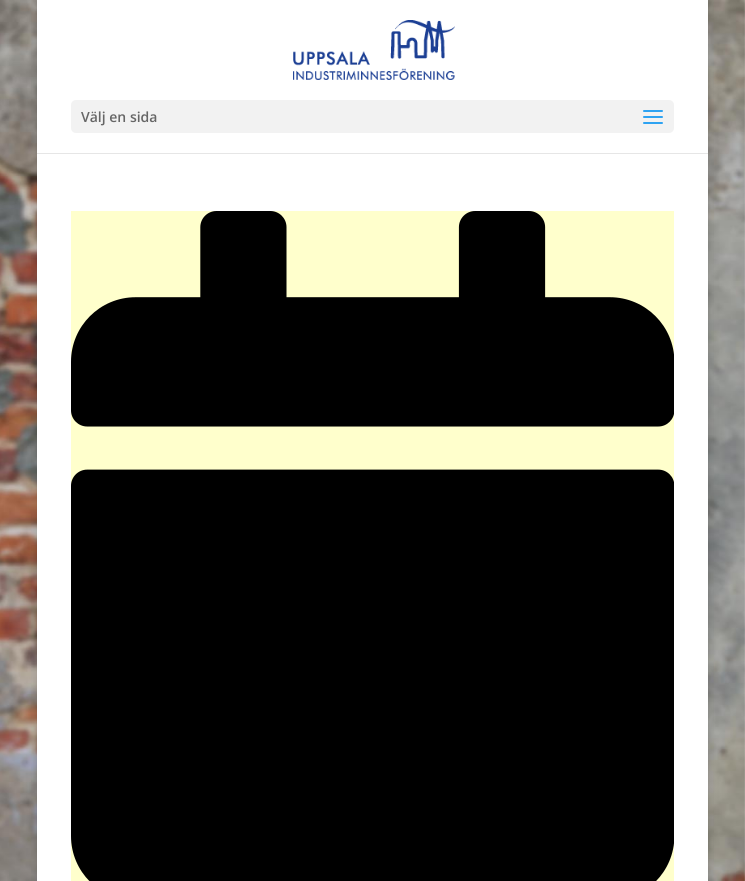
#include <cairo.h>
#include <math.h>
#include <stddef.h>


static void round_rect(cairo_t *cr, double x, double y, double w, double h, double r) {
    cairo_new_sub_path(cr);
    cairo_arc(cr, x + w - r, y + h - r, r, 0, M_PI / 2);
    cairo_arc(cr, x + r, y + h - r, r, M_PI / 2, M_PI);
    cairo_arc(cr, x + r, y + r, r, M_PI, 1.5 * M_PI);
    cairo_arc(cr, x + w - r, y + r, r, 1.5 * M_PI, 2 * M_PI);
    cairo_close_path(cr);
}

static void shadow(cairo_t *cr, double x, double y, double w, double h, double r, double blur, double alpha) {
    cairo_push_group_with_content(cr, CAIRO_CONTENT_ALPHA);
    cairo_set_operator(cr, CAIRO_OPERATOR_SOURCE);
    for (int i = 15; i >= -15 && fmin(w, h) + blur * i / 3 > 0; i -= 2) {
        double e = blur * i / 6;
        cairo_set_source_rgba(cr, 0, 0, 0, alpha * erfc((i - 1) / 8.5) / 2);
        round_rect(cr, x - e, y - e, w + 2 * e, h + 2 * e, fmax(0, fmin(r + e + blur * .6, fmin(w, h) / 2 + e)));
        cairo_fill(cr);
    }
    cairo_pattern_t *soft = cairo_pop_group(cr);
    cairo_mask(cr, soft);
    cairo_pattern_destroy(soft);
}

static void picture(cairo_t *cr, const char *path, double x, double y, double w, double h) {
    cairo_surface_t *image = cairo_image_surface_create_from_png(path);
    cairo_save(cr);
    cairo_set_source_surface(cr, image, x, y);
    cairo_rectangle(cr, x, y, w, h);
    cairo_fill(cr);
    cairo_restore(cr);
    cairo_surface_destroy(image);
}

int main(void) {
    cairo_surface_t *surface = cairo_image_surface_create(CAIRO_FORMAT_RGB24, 745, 881);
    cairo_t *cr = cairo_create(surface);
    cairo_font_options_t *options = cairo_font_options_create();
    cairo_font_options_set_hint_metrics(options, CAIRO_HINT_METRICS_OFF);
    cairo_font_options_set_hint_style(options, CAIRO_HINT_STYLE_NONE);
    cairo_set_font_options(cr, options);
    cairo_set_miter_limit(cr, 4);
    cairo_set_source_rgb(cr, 1, 1, 1);
    cairo_paint(cr);
    picture(cr, "img1.png", 0, 0, 745, 881);
    cairo_set_source_rgb(cr, 0, 0, 0);
    shadow(cr, 37, 0, 671, 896, 0, 5, 0.2);
    cairo_set_source_rgb(cr, 0.902, 0.902, 0.902);
    cairo_rectangle(cr, 37, 153, 671, 1);
    cairo_fill(cr);
    cairo_set_source_rgb(cr, 1, 1, 1);
    cairo_rectangle(cr, 37, 0, 671, 153);
    cairo_fill(cr);
    picture(cr, "img2.png", 293, 20, 162, 60);
    cairo_set_source_rgb(cr, 0.949, 0.949, 0.949);
    round_rect(cr, 71, 100, 603, 33, 5);
    cairo_fill(cr);
    cairo_select_font_face(cr, "Open Sans SemiBold", CAIRO_FONT_SLANT_NORMAL, CAIRO_FONT_WEIGHT_NORMAL);
    cairo_set_font_size(cr, 14);
    cairo_set_source_rgb(cr, 0.4, 0.4, 0.4);
    cairo_move_to(cr, 81, 122);
    cairo_show_text(cr, "Välj en sida");
    picture(cr, "img3.png", 643, 110, 20, 14);
    cairo_set_source_rgb(cr, 1, 1, 1);
    cairo_rectangle(cr, 37, 154, 671, 727);
    cairo_fill(cr);
    cairo_set_source_rgb(cr, 1, 1, 0.8);
    cairo_rectangle(cr, 71, 211, 603, 670);
    cairo_fill(cr);
    picture(cr, "img4.png", 71, 211, 603, 670);
    cairo_surface_write_to_png(surface, "page.png");
    cairo_font_options_destroy(options);
    cairo_destroy(cr);
    cairo_surface_destroy(surface);
    return 0;
}
